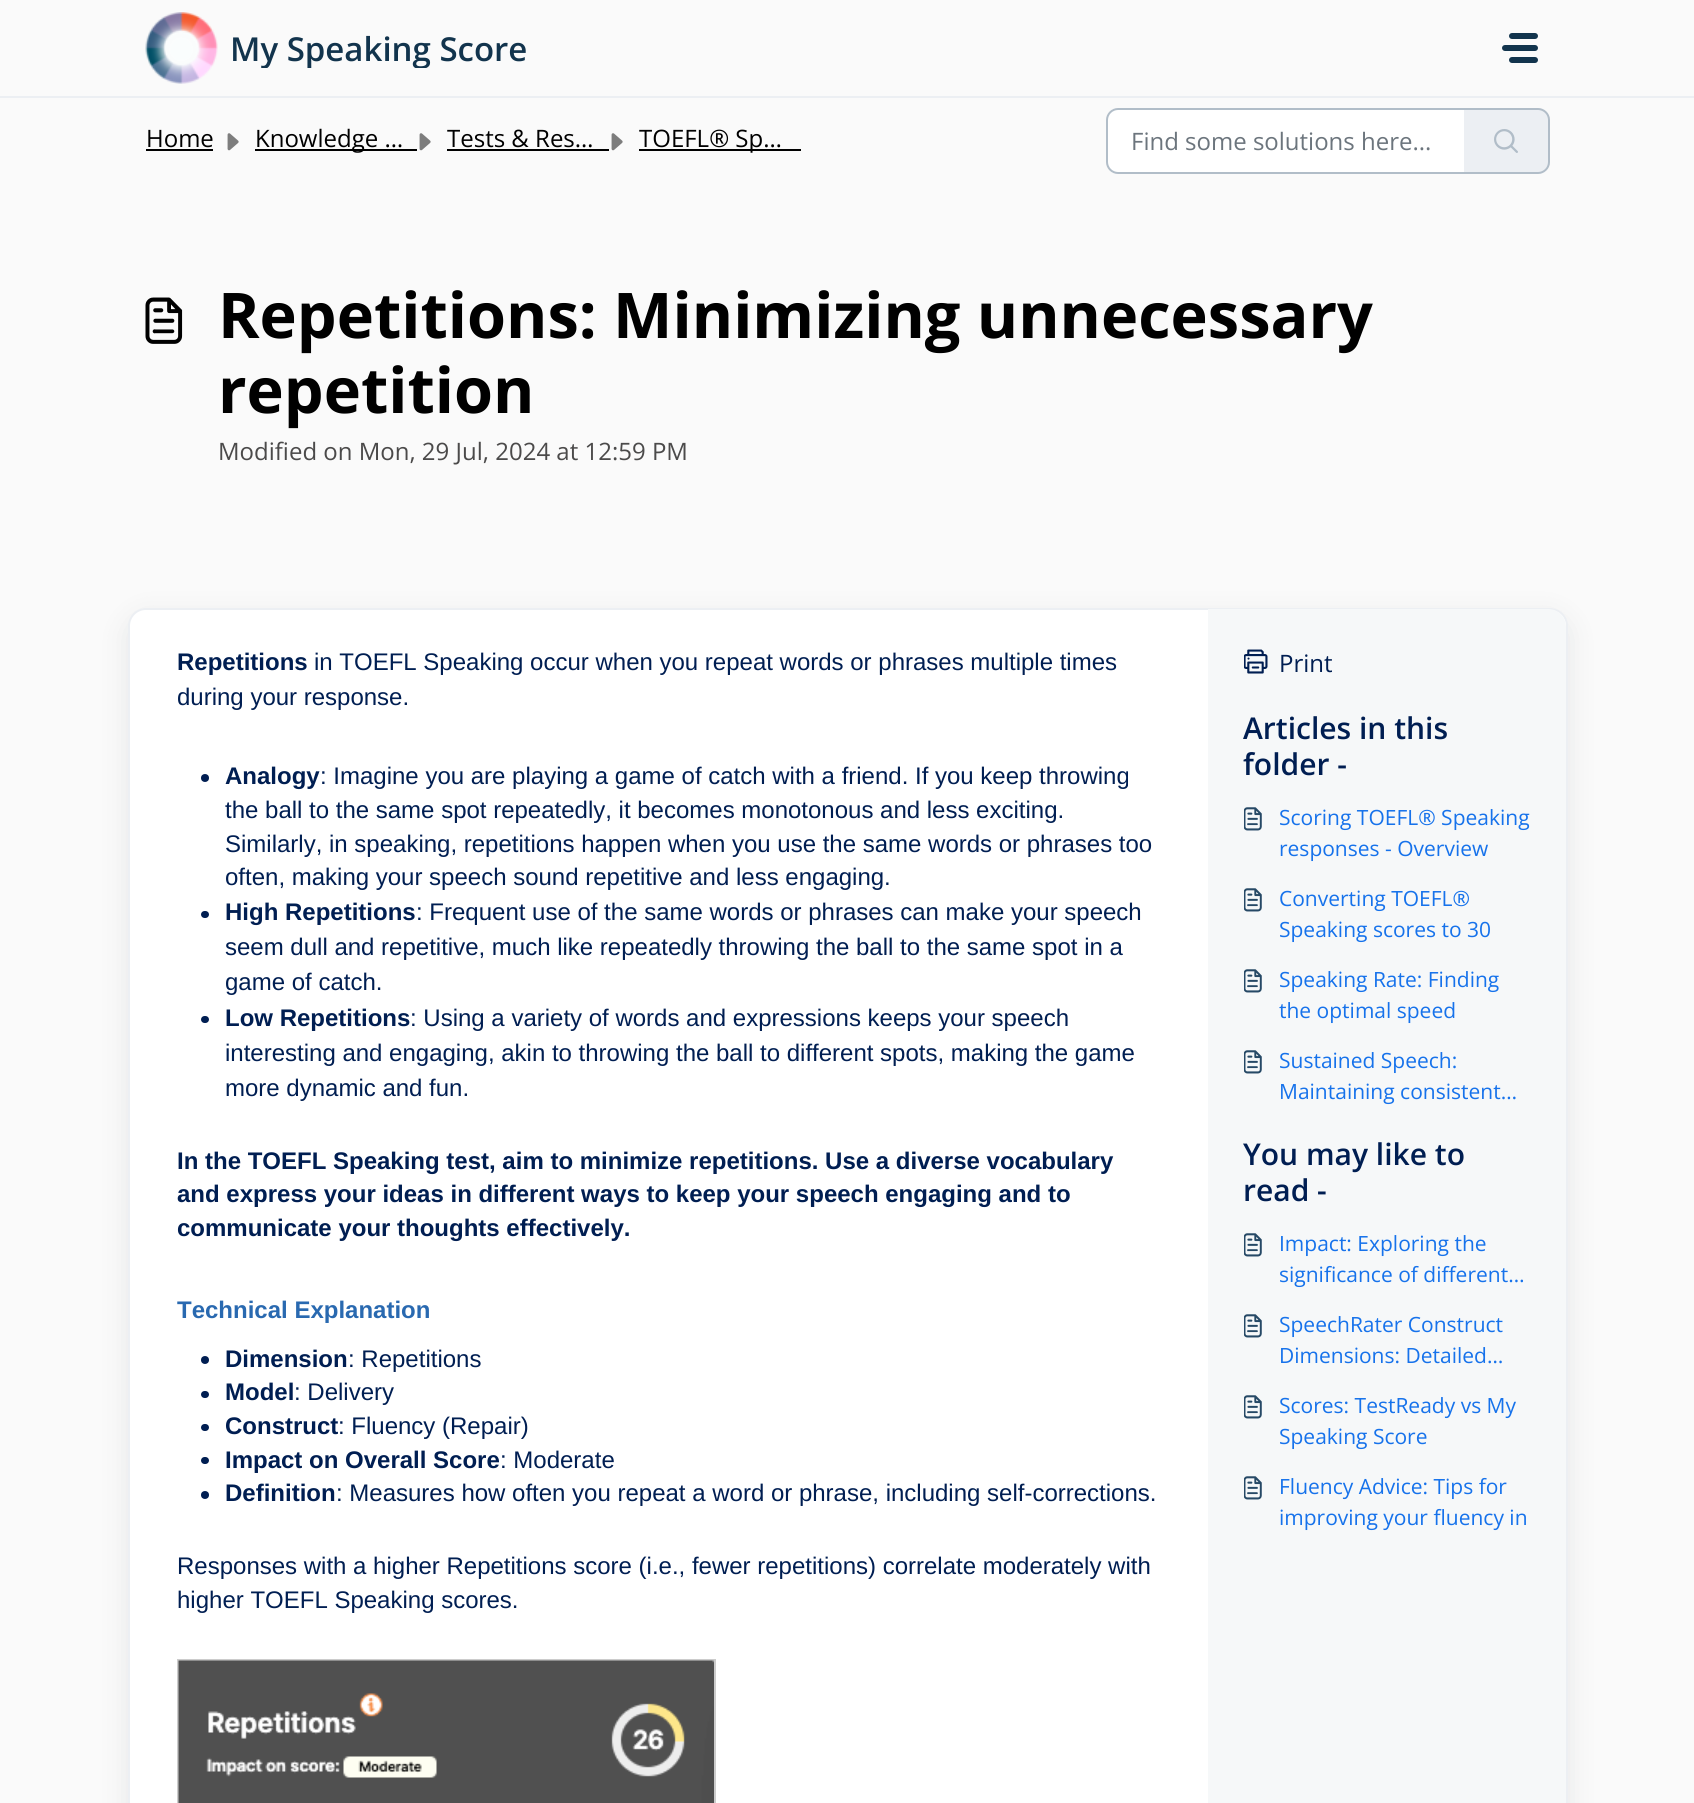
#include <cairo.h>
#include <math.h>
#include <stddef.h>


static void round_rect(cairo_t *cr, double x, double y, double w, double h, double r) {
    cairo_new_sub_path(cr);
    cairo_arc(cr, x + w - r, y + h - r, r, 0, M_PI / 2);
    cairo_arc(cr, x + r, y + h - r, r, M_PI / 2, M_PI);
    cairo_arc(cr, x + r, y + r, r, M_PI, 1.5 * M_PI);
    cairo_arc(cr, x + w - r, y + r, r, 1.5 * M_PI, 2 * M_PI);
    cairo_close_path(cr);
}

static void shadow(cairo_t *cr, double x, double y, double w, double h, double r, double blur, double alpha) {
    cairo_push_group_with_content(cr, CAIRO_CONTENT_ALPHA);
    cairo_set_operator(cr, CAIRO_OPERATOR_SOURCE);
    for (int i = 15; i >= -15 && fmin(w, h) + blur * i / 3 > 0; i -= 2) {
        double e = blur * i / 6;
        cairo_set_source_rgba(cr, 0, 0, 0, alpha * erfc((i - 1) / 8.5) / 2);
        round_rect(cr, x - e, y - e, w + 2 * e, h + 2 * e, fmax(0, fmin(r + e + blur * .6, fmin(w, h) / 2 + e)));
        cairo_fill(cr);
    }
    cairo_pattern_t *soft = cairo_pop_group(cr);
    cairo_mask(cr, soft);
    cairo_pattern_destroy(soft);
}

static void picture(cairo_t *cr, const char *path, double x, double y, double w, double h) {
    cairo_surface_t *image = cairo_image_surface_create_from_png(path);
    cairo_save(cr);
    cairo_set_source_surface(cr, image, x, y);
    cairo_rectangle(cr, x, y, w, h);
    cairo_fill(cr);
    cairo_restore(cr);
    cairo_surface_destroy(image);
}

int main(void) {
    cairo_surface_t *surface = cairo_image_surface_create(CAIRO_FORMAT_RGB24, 1694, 1803);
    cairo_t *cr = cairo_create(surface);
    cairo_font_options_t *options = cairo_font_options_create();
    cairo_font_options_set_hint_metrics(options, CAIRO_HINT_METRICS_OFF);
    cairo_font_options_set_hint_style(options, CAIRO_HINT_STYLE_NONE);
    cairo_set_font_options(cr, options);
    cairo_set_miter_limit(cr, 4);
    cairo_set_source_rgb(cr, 0.98, 0.98, 0.98);
    cairo_paint(cr);
    cairo_set_source_rgb(cr, 0.922, 0.937, 0.953);
    cairo_rectangle(cr, 0, 96, 1694, 2);
    cairo_fill(cr);
    picture(cr, "img1.png", 145, 12, 73, 72);
    cairo_save(cr);
    cairo_rectangle(cr, 230, 29, 297, 39);
    cairo_clip(cr);
    cairo_select_font_face(cr, "Open Sans SemiBold", CAIRO_FONT_SLANT_NORMAL, CAIRO_FONT_WEIGHT_NORMAL);
    cairo_set_font_size(cr, 33);
    cairo_set_source_rgb(cr, 0.071, 0.204, 0.302);
    cairo_move_to(cr, 230, 61);
    cairo_show_text(cr, "My Speaking Score");
    cairo_restore(cr);
    cairo_set_source_rgb(cr, 0.071, 0.204, 0.302);
    round_rect(cr, 1509, 33, 29, 6, 3);
    cairo_fill(cr);
    round_rect(cr, 1502, 45, 36, 6, 3);
    cairo_fill(cr);
    round_rect(cr, 1509, 57, 29, 6, 3);
    cairo_fill(cr);
    cairo_select_font_face(cr, "Open Sans", CAIRO_FONT_SLANT_NORMAL, CAIRO_FONT_WEIGHT_NORMAL);
    cairo_set_font_size(cr, 24);
    cairo_set_source_rgb(cr, 0, 0, 0);
    cairo_move_to(cr, 146, 147);
    cairo_show_text(cr, "Home");
    cairo_rectangle(cr, 146, 149, 67, 2);
    cairo_fill(cr);
    picture(cr, "img2.png", 227, 133, 12, 18);
    cairo_rectangle(cr, 255, 149, 162, 2);
    cairo_fill(cr);
    cairo_move_to(cr, 255, 147);
    cairo_show_text(cr, "Knowledge …");
    picture(cr, "img2.png", 419, 133, 12, 18);
    cairo_move_to(cr, 447, 147);
    cairo_show_text(cr, "Tests & Res…");
    cairo_rectangle(cr, 447, 149, 162, 2);
    cairo_fill(cr);
    picture(cr, "img2.png", 611, 133, 12, 18);
    cairo_rectangle(cr, 639, 149, 162, 2);
    cairo_fill(cr);
    cairo_move_to(cr, 639, 147);
    cairo_show_text(cr, "TOEFL® Sp…");
    cairo_set_source_rgb(cr, 1, 1, 1);
    cairo_new_path(cr);
    cairo_move_to(cr, 1118, 109);
    cairo_line_to(cr, 1465, 109);
    cairo_line_to(cr, 1465, 173);
    cairo_line_to(cr, 1118, 173);
    cairo_curve_to(cr, 1112, 173, 1107, 168, 1107, 162);
    cairo_line_to(cr, 1107, 120);
    cairo_curve_to(cr, 1107, 114, 1112, 109, 1118, 109);
    cairo_close_path(cr);
    cairo_fill_preserve(cr);
    cairo_set_source_rgb(cr, 0.694, 0.741, 0.784);
    cairo_stroke(cr);
    cairo_set_source_rgb(cr, 0.424, 0.459, 0.49);
    cairo_move_to(cr, 1131, 150);
    cairo_show_text(cr, "Find some solutions here...");
    cairo_set_source_rgb(cr, 0.922, 0.937, 0.953);
    cairo_new_path(cr);
    cairo_move_to(cr, 1464, 108);
    cairo_line_to(cr, 1538, 108);
    cairo_curve_to(cr, 1544.5, 108, 1550, 113.5, 1550, 120);
    cairo_line_to(cr, 1550, 162);
    cairo_curve_to(cr, 1550, 168.5, 1544.5, 174, 1538, 174);
    cairo_line_to(cr, 1464, 174);
    cairo_close_path(cr);
    cairo_fill(cr);
    cairo_set_source_rgb(cr, 0.694, 0.741, 0.784);
    cairo_set_fill_rule(cr, CAIRO_FILL_RULE_EVEN_ODD);
    cairo_new_path(cr);
    cairo_move_to(cr, 1464, 108);
    cairo_line_to(cr, 1538, 108);
    cairo_curve_to(cr, 1544, 108, 1550, 113, 1550, 120);
    cairo_line_to(cr, 1550, 162);
    cairo_curve_to(cr, 1550, 169, 1544, 174, 1538, 174);
    cairo_line_to(cr, 1464, 174);
    cairo_close_path(cr);
    cairo_move_to(cr, 1464, 110);
    cairo_line_to(cr, 1538, 110);
    cairo_curve_to(cr, 1543, 110, 1548, 114, 1548, 120);
    cairo_line_to(cr, 1548, 162);
    cairo_curve_to(cr, 1548, 168, 1543, 172, 1538, 172);
    cairo_line_to(cr, 1464, 172);
    cairo_close_path(cr);
    cairo_fill(cr);
    picture(cr, "img3.png", 1494, 129, 24, 24);
    picture(cr, "img4.png", 145, 297, 38, 47);
    cairo_select_font_face(cr, "Open Sans", CAIRO_FONT_SLANT_NORMAL, CAIRO_FONT_WEIGHT_BOLD);
    cairo_set_font_size(cr, 63);
    cairo_set_source_rgb(cr, 0, 0, 0);
    cairo_move_to(cr, 218, 338);
    cairo_show_text(cr, "Repetitions: Minimizing unnecessary");
    cairo_move_to(cr, 218, 413);
    cairo_show_text(cr, "repetition");
    cairo_select_font_face(cr, "Open Sans", CAIRO_FONT_SLANT_NORMAL, CAIRO_FONT_WEIGHT_NORMAL);
    cairo_set_font_size(cr, 24);
    cairo_set_source_rgb(cr, 0.294, 0.29, 0.29);
    cairo_move_to(cr, 218, 460);
    cairo_show_text(cr, "Modified on Mon, 29 Jul, 2024 at 12:59 PM");
    cairo_set_source_rgb(cr, 0.153, 0.192, 0.227);
    shadow(cr, 128, 617, 1440, 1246, 18, 14, 0.1);
    cairo_set_source_rgb(cr, 1, 1, 1);
    round_rect(cr, 129, 609, 1438, 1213, 17);
    cairo_fill_preserve(cr);
    cairo_set_source_rgb(cr, 0.922, 0.937, 0.953);
    cairo_stroke(cr);
    cairo_select_font_face(cr, "Liberation Sans", CAIRO_FONT_SLANT_NORMAL, CAIRO_FONT_WEIGHT_BOLD);
    cairo_set_source_rgb(cr, 0, 0.118, 0.322);
    cairo_move_to(cr, 177, 670);
    cairo_show_text(cr, "Repetitions");
    cairo_select_font_face(cr, "Liberation Sans", CAIRO_FONT_SLANT_NORMAL, CAIRO_FONT_WEIGHT_NORMAL);
    cairo_move_to(cr, 314, 670);
    cairo_show_text(cr, "in TOEFL Speaking occur when you repeat words or phrases multiple times");
    cairo_move_to(cr, 177, 705);
    cairo_show_text(cr, "during your response.");
    cairo_new_path(cr);
    cairo_arc(cr, 205, 778, 4, 0, 2 * M_PI);
    cairo_fill(cr);
    cairo_select_font_face(cr, "Liberation Sans", CAIRO_FONT_SLANT_NORMAL, CAIRO_FONT_WEIGHT_BOLD);
    cairo_move_to(cr, 225, 784);
    cairo_show_text(cr, "Analogy");
    cairo_select_font_face(cr, "Liberation Sans", CAIRO_FONT_SLANT_NORMAL, CAIRO_FONT_WEIGHT_NORMAL);
    cairo_move_to(cr, 320, 784);
    cairo_show_text(cr, ": Imagine you are playing a game of catch with a friend. If you keep throwing");
    cairo_move_to(cr, 225, 818);
    cairo_show_text(cr, "the ball to the same spot repeatedly, it becomes monotonous and less exciting.");
    cairo_move_to(cr, 225, 852);
    cairo_show_text(cr, "Similarly, in speaking, repetitions happen when you use the same words or phrases too");
    cairo_move_to(cr, 225, 885);
    cairo_show_text(cr, "often, making your speech sound repetitive and less engaging.");
    round_rect(cr, 201, 911, 8, 7, 3.5);
    cairo_fill(cr);
    cairo_select_font_face(cr, "Liberation Sans", CAIRO_FONT_SLANT_NORMAL, CAIRO_FONT_WEIGHT_BOLD);
    cairo_move_to(cr, 225, 920);
    cairo_show_text(cr, "High Repetitions");
    cairo_select_font_face(cr, "Liberation Sans", CAIRO_FONT_SLANT_NORMAL, CAIRO_FONT_WEIGHT_NORMAL);
    cairo_move_to(cr, 416, 920);
    cairo_show_text(cr, ": Frequent use of the same words or phrases can make your speech");
    cairo_move_to(cr, 225, 955);
    cairo_show_text(cr, "seem dull and repetitive, much like repeatedly throwing the ball to the same spot in a");
    cairo_move_to(cr, 225, 990);
    cairo_show_text(cr, "game of catch.");
    round_rect(cr, 201, 1016, 8, 7, 3.5);
    cairo_fill(cr);
    cairo_select_font_face(cr, "Liberation Sans", CAIRO_FONT_SLANT_NORMAL, CAIRO_FONT_WEIGHT_BOLD);
    cairo_move_to(cr, 225, 1026);
    cairo_show_text(cr, "Low Repetitions");
    cairo_select_font_face(cr, "Liberation Sans", CAIRO_FONT_SLANT_NORMAL, CAIRO_FONT_WEIGHT_NORMAL);
    cairo_move_to(cr, 410, 1026);
    cairo_show_text(cr, ": Using a variety of words and expressions keeps your speech");
    cairo_move_to(cr, 225, 1061);
    cairo_show_text(cr, "interesting and engaging, akin to throwing the ball to different spots, making the game");
    cairo_move_to(cr, 225, 1096);
    cairo_show_text(cr, "more dynamic and fun.");
    cairo_select_font_face(cr, "Liberation Sans", CAIRO_FONT_SLANT_NORMAL, CAIRO_FONT_WEIGHT_BOLD);
    cairo_move_to(cr, 177, 1169);
    cairo_show_text(cr, "In the TOEFL Speaking test, aim to minimize repetitions. Use a diverse vocabulary");
    cairo_move_to(cr, 177, 1202);
    cairo_show_text(cr, "and express your ideas in different ways to keep your speech engaging and to");
    cairo_move_to(cr, 177, 1236);
    cairo_show_text(cr, "communicate your thoughts effectively.");
    cairo_set_source_rgb(cr, 0.161, 0.412, 0.69);
    cairo_move_to(cr, 177, 1318);
    cairo_show_text(cr, "Technical Explanation");
    cairo_set_source_rgb(cr, 0, 0.118, 0.322);
    cairo_new_path(cr);
    cairo_arc(cr, 205, 1360, 4, 0, 2 * M_PI);
    cairo_fill(cr);
    cairo_move_to(cr, 225, 1367);
    cairo_show_text(cr, "Dimension");
    cairo_select_font_face(cr, "Liberation Sans", CAIRO_FONT_SLANT_NORMAL, CAIRO_FONT_WEIGHT_NORMAL);
    cairo_move_to(cr, 348, 1367);
    cairo_show_text(cr, ": Repetitions");
    round_rect(cr, 201, 1391, 8, 7, 3.5);
    cairo_fill(cr);
    cairo_select_font_face(cr, "Liberation Sans", CAIRO_FONT_SLANT_NORMAL, CAIRO_FONT_WEIGHT_BOLD);
    cairo_move_to(cr, 225, 1400);
    cairo_show_text(cr, "Model");
    cairo_select_font_face(cr, "Liberation Sans", CAIRO_FONT_SLANT_NORMAL, CAIRO_FONT_WEIGHT_NORMAL);
    cairo_move_to(cr, 294, 1400);
    cairo_show_text(cr, ": Delivery");
    round_rect(cr, 201, 1424, 8, 7, 3.5);
    cairo_fill(cr);
    cairo_select_font_face(cr, "Liberation Sans", CAIRO_FONT_SLANT_NORMAL, CAIRO_FONT_WEIGHT_BOLD);
    cairo_move_to(cr, 225, 1434);
    cairo_show_text(cr, "Construct");
    cairo_select_font_face(cr, "Liberation Sans", CAIRO_FONT_SLANT_NORMAL, CAIRO_FONT_WEIGHT_NORMAL);
    cairo_move_to(cr, 338, 1434);
    cairo_show_text(cr, ": Fluency (Repair)");
    round_rect(cr, 201, 1457, 8, 7, 3.5);
    cairo_fill(cr);
    cairo_select_font_face(cr, "Liberation Sans", CAIRO_FONT_SLANT_NORMAL, CAIRO_FONT_WEIGHT_BOLD);
    cairo_move_to(cr, 225, 1468);
    cairo_show_text(cr, "Impact on Overall Score");
    cairo_select_font_face(cr, "Liberation Sans", CAIRO_FONT_SLANT_NORMAL, CAIRO_FONT_WEIGHT_NORMAL);
    cairo_move_to(cr, 500, 1468);
    cairo_show_text(cr, ": Moderate");
    cairo_new_path(cr);
    cairo_arc(cr, 205, 1495, 4, 0, 2 * M_PI);
    cairo_fill(cr);
    cairo_select_font_face(cr, "Liberation Sans", CAIRO_FONT_SLANT_NORMAL, CAIRO_FONT_WEIGHT_BOLD);
    cairo_move_to(cr, 225, 1501);
    cairo_show_text(cr, "Definition");
    cairo_select_font_face(cr, "Liberation Sans", CAIRO_FONT_SLANT_NORMAL, CAIRO_FONT_WEIGHT_NORMAL);
    cairo_move_to(cr, 336, 1501);
    cairo_show_text(cr, ": Measures how often you repeat a word or phrase, including self-corrections.");
    cairo_move_to(cr, 177, 1574);
    cairo_show_text(cr, "Responses with a higher Repetitions score (i.e., fewer repetitions) correlate moderately with");
    cairo_move_to(cr, 177, 1608);
    cairo_show_text(cr, "higher TOEFL Speaking scores.");
    cairo_rectangle(cr, 178, 1660, 537, 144);
    cairo_set_source_rgb(cr, 0.8, 0.8, 0.8);
    cairo_stroke(cr);
    picture(cr, "img5.png", 178, 1660, 536, 143);
    cairo_set_source_rgb(cr, 0.961, 0.969, 0.976);
    cairo_new_path(cr);
    cairo_move_to(cr, 1208, 609);
    cairo_line_to(cr, 1548, 609);
    cairo_curve_to(cr, 1558, 609, 1566, 617, 1566, 627);
    cairo_line_to(cr, 1566, 1803);
    cairo_curve_to(cr, 1566, 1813, 1558, 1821, 1548, 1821);
    cairo_line_to(cr, 1208, 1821);
    cairo_close_path(cr);
    cairo_fill(cr);
    picture(cr, "img6.png", 1244, 649, 24, 25);
    cairo_select_font_face(cr, "Open Sans", CAIRO_FONT_SLANT_NORMAL, CAIRO_FONT_WEIGHT_NORMAL);
    cairo_set_source_rgb(cr, 0, 0.118, 0.322);
    cairo_move_to(cr, 1279, 672);
    cairo_show_text(cr, "Print");
    cairo_select_font_face(cr, "Open Sans SemiBold", CAIRO_FONT_SLANT_NORMAL, CAIRO_FONT_WEIGHT_NORMAL);
    cairo_set_font_size(cr, 30);
    cairo_move_to(cr, 1243, 739);
    cairo_show_text(cr, "Articles in this");
    cairo_move_to(cr, 1243, 775);
    cairo_show_text(cr, "folder -");
    picture(cr, "img7.png", 1244, 807, 18, 24);
    cairo_select_font_face(cr, "Open Sans", CAIRO_FONT_SLANT_NORMAL, CAIRO_FONT_WEIGHT_NORMAL);
    cairo_set_font_size(cr, 21);
    cairo_set_source_rgb(cr, 0.086, 0.447, 0.918);
    cairo_move_to(cr, 1279, 825);
    cairo_show_text(cr, "Scoring TOEFL® Speaking");
    cairo_move_to(cr, 1279, 856);
    cairo_show_text(cr, "responses - Overview");
    picture(cr, "img7.png", 1244, 888, 18, 24);
    cairo_move_to(cr, 1279, 906);
    cairo_show_text(cr, "Converting TOEFL®");
    cairo_move_to(cr, 1279, 937);
    cairo_show_text(cr, "Speaking scores to 30");
    picture(cr, "img7.png", 1244, 969, 18, 24);
    cairo_move_to(cr, 1279, 987);
    cairo_show_text(cr, "Speaking Rate: Finding");
    cairo_move_to(cr, 1279, 1018);
    cairo_show_text(cr, "the optimal speed");
    picture(cr, "img7.png", 1244, 1050, 18, 24);
    cairo_move_to(cr, 1279, 1068);
    cairo_show_text(cr, "Sustained Speech:");
    cairo_move_to(cr, 1279, 1099);
    cairo_show_text(cr, "Maintaining consistent…");
    cairo_select_font_face(cr, "Open Sans SemiBold", CAIRO_FONT_SLANT_NORMAL, CAIRO_FONT_WEIGHT_NORMAL);
    cairo_set_font_size(cr, 30);
    cairo_set_source_rgb(cr, 0, 0.118, 0.322);
    cairo_move_to(cr, 1243, 1165);
    cairo_show_text(cr, "You may like to");
    cairo_move_to(cr, 1243, 1201);
    cairo_show_text(cr, "read -");
    picture(cr, "img7.png", 1244, 1233, 18, 24);
    cairo_select_font_face(cr, "Open Sans", CAIRO_FONT_SLANT_NORMAL, CAIRO_FONT_WEIGHT_NORMAL);
    cairo_set_font_size(cr, 21);
    cairo_set_source_rgb(cr, 0.086, 0.447, 0.918);
    cairo_move_to(cr, 1279, 1251);
    cairo_show_text(cr, "Impact: Exploring the");
    cairo_move_to(cr, 1279, 1282);
    cairo_show_text(cr, "significance of different…");
    picture(cr, "img7.png", 1244, 1314, 18, 24);
    cairo_move_to(cr, 1279, 1332);
    cairo_show_text(cr, "SpeechRater Construct");
    cairo_move_to(cr, 1279, 1363);
    cairo_show_text(cr, "Dimensions: Detailed…");
    picture(cr, "img7.png", 1244, 1395, 18, 24);
    cairo_move_to(cr, 1279, 1413);
    cairo_show_text(cr, "Scores: TestReady vs My");
    cairo_move_to(cr, 1279, 1444);
    cairo_show_text(cr, "Speaking Score");
    picture(cr, "img7.png", 1244, 1476, 18, 24);
    cairo_move_to(cr, 1279, 1494);
    cairo_show_text(cr, "Fluency Advice: Tips for");
    cairo_move_to(cr, 1279, 1525);
    cairo_show_text(cr, "improving your fluency in");
    cairo_surface_write_to_png(surface, "page.png");
    cairo_font_options_destroy(options);
    cairo_destroy(cr);
    cairo_surface_destroy(surface);
    return 0;
}
